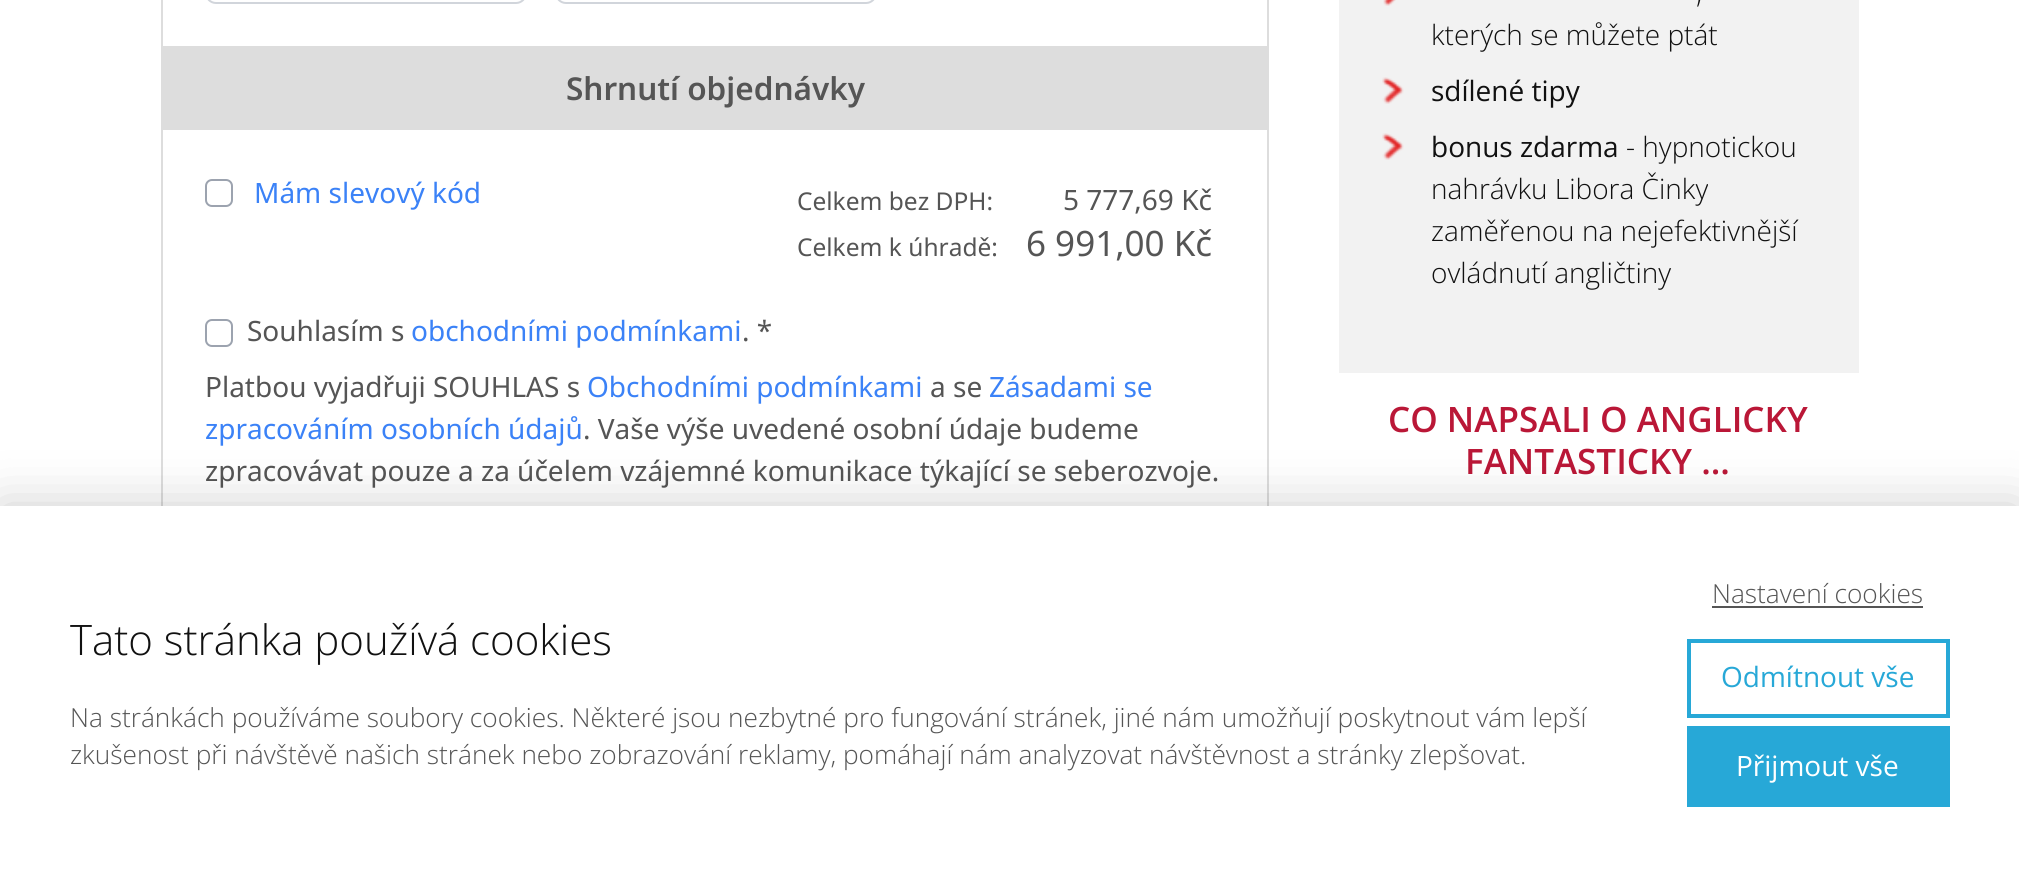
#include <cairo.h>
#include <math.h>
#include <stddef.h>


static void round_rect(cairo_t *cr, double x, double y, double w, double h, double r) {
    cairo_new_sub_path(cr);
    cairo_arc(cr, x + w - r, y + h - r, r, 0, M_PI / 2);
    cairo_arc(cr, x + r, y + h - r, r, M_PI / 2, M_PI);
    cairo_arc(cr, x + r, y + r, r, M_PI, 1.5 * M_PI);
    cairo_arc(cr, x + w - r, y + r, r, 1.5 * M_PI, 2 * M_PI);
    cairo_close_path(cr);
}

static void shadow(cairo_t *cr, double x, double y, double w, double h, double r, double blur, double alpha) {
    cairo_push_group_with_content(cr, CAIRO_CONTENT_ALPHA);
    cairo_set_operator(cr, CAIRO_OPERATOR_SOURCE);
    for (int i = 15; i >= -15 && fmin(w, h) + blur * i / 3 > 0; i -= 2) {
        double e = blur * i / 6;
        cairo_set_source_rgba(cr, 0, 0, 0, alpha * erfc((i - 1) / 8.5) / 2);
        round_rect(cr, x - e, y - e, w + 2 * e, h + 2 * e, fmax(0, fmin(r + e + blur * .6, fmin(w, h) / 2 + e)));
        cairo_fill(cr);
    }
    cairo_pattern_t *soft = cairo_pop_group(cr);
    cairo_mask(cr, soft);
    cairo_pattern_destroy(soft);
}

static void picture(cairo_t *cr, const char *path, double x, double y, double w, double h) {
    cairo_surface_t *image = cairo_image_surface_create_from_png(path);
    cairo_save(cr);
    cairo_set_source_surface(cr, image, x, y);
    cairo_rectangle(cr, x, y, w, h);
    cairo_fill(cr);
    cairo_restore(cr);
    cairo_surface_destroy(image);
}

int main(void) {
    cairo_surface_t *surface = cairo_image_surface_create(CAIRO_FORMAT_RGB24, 2019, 876);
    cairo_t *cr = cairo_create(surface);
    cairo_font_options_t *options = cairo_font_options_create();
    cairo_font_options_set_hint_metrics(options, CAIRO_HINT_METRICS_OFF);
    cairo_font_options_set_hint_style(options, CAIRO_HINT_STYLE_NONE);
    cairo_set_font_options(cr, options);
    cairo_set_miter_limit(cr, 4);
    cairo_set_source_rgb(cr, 1, 1, 1);
    cairo_paint(cr);
    cairo_rectangle(cr, 162, -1, 1106, 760);
    cairo_set_source_rgb(cr, 0.867, 0.867, 0.867);
    cairo_stroke(cr);
    round_rect(cr, 206, -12, 320, 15, 10);
    cairo_set_source_rgb(cr, 0.82, 0.835, 0.859);
    cairo_stroke(cr);
    round_rect(cr, 556, -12, 320, 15, 10);
    cairo_stroke(cr);
    cairo_set_source_rgb(cr, 0.867, 0.867, 0.867);
    cairo_rectangle(cr, 163, 46, 1104, 84);
    cairo_fill(cr);
    cairo_select_font_face(cr, "Noto Sans SemiBold", CAIRO_FONT_SLANT_NORMAL, CAIRO_FONT_WEIGHT_NORMAL);
    cairo_set_font_size(cr, 31.5);
    cairo_set_source_rgb(cr, 0.333, 0.333, 0.333);
    cairo_move_to(cr, 566, 100);
    cairo_show_text(cr, "Shrnutí objednávky");
    round_rect(cr, 206, 180, 26, 26, 6);
    cairo_set_source_rgb(cr, 0.612, 0.639, 0.686);
    cairo_stroke(cr);
    cairo_select_font_face(cr, "Noto Sans", CAIRO_FONT_SLANT_NORMAL, CAIRO_FONT_WEIGHT_NORMAL);
    cairo_set_font_size(cr, 28);
    cairo_set_source_rgb(cr, 0.231, 0.51, 0.965);
    cairo_move_to(cr, 254, 203);
    cairo_show_text(cr, "Mám slevový kód");
    cairo_set_font_size(cr, 24.5);
    cairo_set_source_rgb(cr, 0.333, 0.333, 0.333);
    cairo_move_to(cr, 797, 210);
    cairo_show_text(cr, "Celkem bez DPH:");
    cairo_set_font_size(cr, 28);
    cairo_move_to(cr, 1063, 210);
    cairo_show_text(cr, "5 777,69 Kč");
    cairo_set_font_size(cr, 24.5);
    cairo_move_to(cr, 797, 256);
    cairo_show_text(cr, "Celkem k úhradě:");
    cairo_set_font_size(cr, 35);
    cairo_move_to(cr, 1026, 256);
    cairo_show_text(cr, "6 991,00 Kč");
    round_rect(cr, 206, 320, 26, 26, 6);
    cairo_set_source_rgb(cr, 0.612, 0.639, 0.686);
    cairo_stroke(cr);
    cairo_set_font_size(cr, 28);
    cairo_set_source_rgb(cr, 0.333, 0.333, 0.333);
    cairo_move_to(cr, 247, 341);
    cairo_show_text(cr, "Souhlasím s");
    cairo_set_source_rgb(cr, 0.231, 0.51, 0.965);
    cairo_move_to(cr, 411, 341);
    cairo_show_text(cr, "obchodními podmínkami");
    cairo_set_source_rgb(cr, 0.333, 0.333, 0.333);
    cairo_move_to(cr, 742, 341);
    cairo_show_text(cr, ". *");
    cairo_move_to(cr, 205, 397);
    cairo_show_text(cr, "Platbou vyjadřuji SOUHLAS s");
    cairo_set_source_rgb(cr, 0.231, 0.51, 0.965);
    cairo_move_to(cr, 587, 397);
    cairo_show_text(cr, "Obchodními podmínkami");
    cairo_set_source_rgb(cr, 0.333, 0.333, 0.333);
    cairo_move_to(cr, 930, 397);
    cairo_show_text(cr, "a se");
    cairo_set_source_rgb(cr, 0.231, 0.51, 0.965);
    cairo_move_to(cr, 989, 397);
    cairo_show_text(cr, "Zásadami se");
    cairo_move_to(cr, 205, 439);
    cairo_show_text(cr, "zpracováním osobních údajů");
    cairo_set_source_rgb(cr, 0.333, 0.333, 0.333);
    cairo_move_to(cr, 583, 439);
    cairo_show_text(cr, ". Vaše výše uvedené osobní údaje budeme");
    cairo_move_to(cr, 205, 481);
    cairo_show_text(cr, "zpracovávat pouze a za účelem vzájemné komunikace týkající se seberozvoje.");
    cairo_set_source_rgb(cr, 0.949, 0.949, 0.949);
    cairo_rectangle(cr, 1339, 0, 520, 373);
    cairo_fill(cr);
    picture(cr, "img1.png", 1383, 0, 13, 6);
    cairo_select_font_face(cr, "Open Sans Light", CAIRO_FONT_SLANT_NORMAL, CAIRO_FONT_WEIGHT_NORMAL);
    cairo_set_source_rgb(cr, 0.067, 0.067, 0.067);
    cairo_move_to(cr, 1696, 3);
    cairo_show_text(cr, ",");
    cairo_move_to(cr, 1431, 45);
    cairo_show_text(cr, "kterých se můžete ptát");
    picture(cr, "img2.png", 1382, 77, 22, 27);
    cairo_select_font_face(cr, "Open Sans", CAIRO_FONT_SLANT_NORMAL, CAIRO_FONT_WEIGHT_NORMAL);
    cairo_move_to(cr, 1431, 101);
    cairo_show_text(cr, "sdílené tipy");
    picture(cr, "img2.png", 1382, 133, 22, 27);
    cairo_move_to(cr, 1431, 157);
    cairo_show_text(cr, "bonus zdarma");
    cairo_select_font_face(cr, "Open Sans Light", CAIRO_FONT_SLANT_NORMAL, CAIRO_FONT_WEIGHT_NORMAL);
    cairo_move_to(cr, 1626, 157);
    cairo_show_text(cr, "- hypnotickou");
    cairo_move_to(cr, 1431, 199);
    cairo_show_text(cr, "nahrávku Libora Činky");
    cairo_move_to(cr, 1431, 241);
    cairo_show_text(cr, "zaměřenou na nejefektivnější");
    cairo_move_to(cr, 1431, 283);
    cairo_show_text(cr, "ovládnutí angličtiny");
    cairo_select_font_face(cr, "Open Sans SemiBold", CAIRO_FONT_SLANT_NORMAL, CAIRO_FONT_WEIGHT_NORMAL);
    cairo_set_font_size(cr, 35);
    cairo_set_source_rgb(cr, 0.729, 0.09, 0.216);
    cairo_move_to(cr, 1388, 432);
    cairo_show_text(cr, "CO NAPSALI O ANGLICKY");
    cairo_move_to(cr, 1465, 474);
    cairo_show_text(cr, "FANTASTICKY ...");
    cairo_set_source_rgb(cr, 0, 0, 0);
    shadow(cr, 0, 506, 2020, 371, 0, 26, 0.2);
    cairo_set_source_rgb(cr, 1, 1, 1);
    cairo_rectangle(cr, 0, 506, 2019, 370);
    cairo_fill(cr);
    cairo_select_font_face(cr, "Open Sans Light", CAIRO_FONT_SLANT_NORMAL, CAIRO_FONT_WEIGHT_NORMAL);
    cairo_set_font_size(cr, 42);
    cairo_set_source_rgb(cr, 0.067, 0.067, 0.067);
    cairo_move_to(cr, 70, 655);
    cairo_show_text(cr, "Tato stránka používá cookies");
    cairo_set_font_size(cr, 26.25);
    cairo_set_source_rgb(cr, 0.333, 0.333, 0.333);
    cairo_move_to(cr, 70, 727);
    cairo_show_text(cr, "Na stránkách používáme soubory cookies. Některé jsou nezbytné pro fungování stránek, jiné nám umožňují poskytnout vám lepší");
    cairo_move_to(cr, 70, 764);
    cairo_show_text(cr, "zkušenost při návštěvě našich stránek nebo zobrazování reklamy, pomáhají nám analyzovat návštěvnost a stránky zlepšovat.");
    cairo_move_to(cr, 1712, 603);
    cairo_show_text(cr, "Nastavení cookies");
    cairo_rectangle(cr, 1712, 606, 211, 2);
    cairo_fill(cr);
    cairo_rectangle(cr, 1689, 641, 259, 75);
    cairo_set_source_rgb(cr, 0.153, 0.659, 0.843);
    cairo_set_line_width(cr, 4);
    cairo_stroke(cr);
    cairo_select_font_face(cr, "Open Sans", CAIRO_FONT_SLANT_NORMAL, CAIRO_FONT_WEIGHT_NORMAL);
    cairo_set_font_size(cr, 28);
    cairo_move_to(cr, 1721, 687);
    cairo_show_text(cr, "Odmítnout vše");
    cairo_rectangle(cr, 1687, 726, 263, 81);
    cairo_fill(cr);
    cairo_set_source_rgb(cr, 1, 1, 1);
    cairo_move_to(cr, 1736, 776);
    cairo_show_text(cr, "Přijmout vše");
    cairo_surface_write_to_png(surface, "page.png");
    cairo_font_options_destroy(options);
    cairo_destroy(cr);
    cairo_surface_destroy(surface);
    return 0;
}
